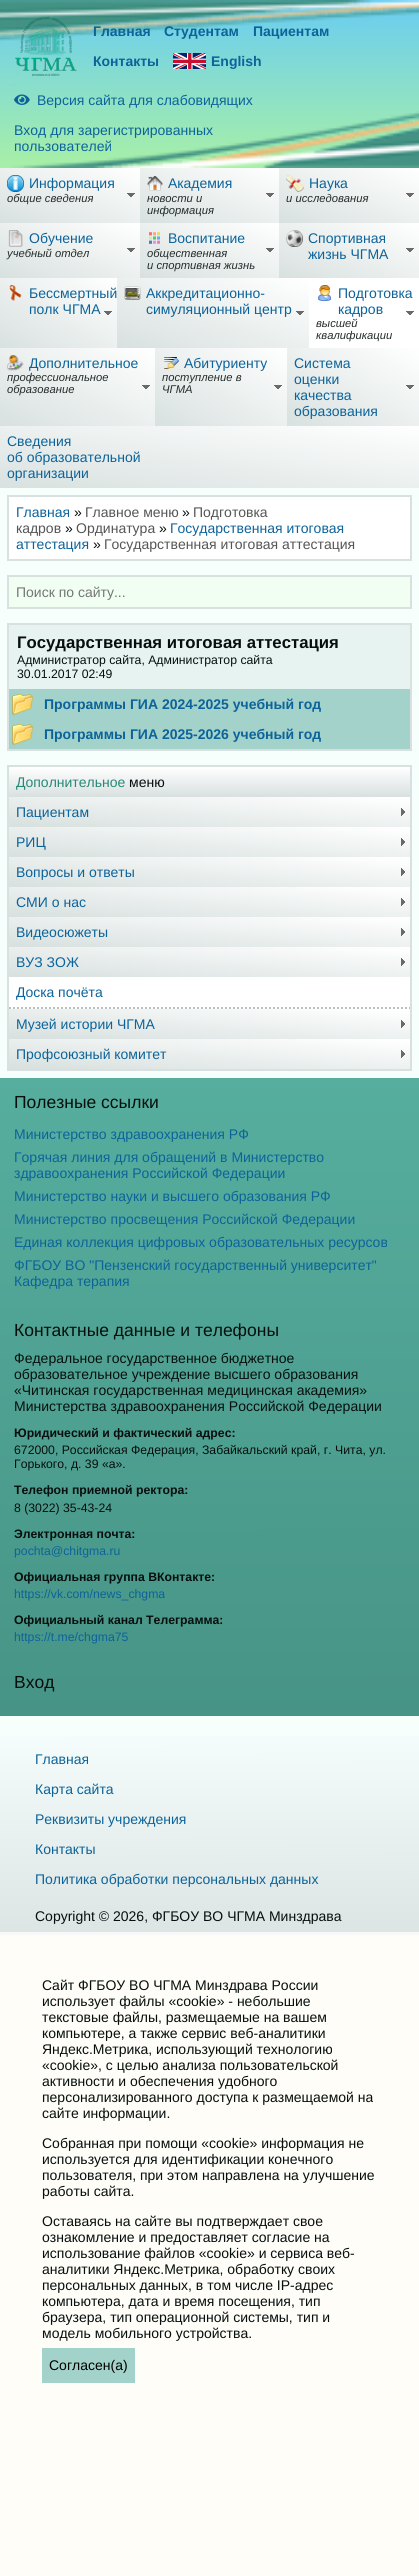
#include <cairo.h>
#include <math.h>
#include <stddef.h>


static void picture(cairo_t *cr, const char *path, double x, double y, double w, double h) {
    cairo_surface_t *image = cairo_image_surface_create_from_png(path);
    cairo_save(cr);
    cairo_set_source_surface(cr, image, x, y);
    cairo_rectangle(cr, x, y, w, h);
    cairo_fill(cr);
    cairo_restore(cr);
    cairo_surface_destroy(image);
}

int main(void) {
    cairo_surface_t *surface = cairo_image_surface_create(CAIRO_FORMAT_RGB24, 419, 2576);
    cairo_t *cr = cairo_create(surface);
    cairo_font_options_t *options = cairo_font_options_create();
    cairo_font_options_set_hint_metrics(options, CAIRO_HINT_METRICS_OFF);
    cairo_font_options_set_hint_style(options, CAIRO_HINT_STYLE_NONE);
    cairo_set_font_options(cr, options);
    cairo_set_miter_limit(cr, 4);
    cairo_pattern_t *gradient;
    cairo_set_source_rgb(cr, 0.965, 1, 0.992);
    cairo_paint(cr);
    gradient = cairo_pattern_create_linear(210, 168, 210, 0);
    cairo_pattern_add_color_stop_rgba(gradient, 0, 0.659, 0.941, 0.651, 1);
    cairo_pattern_add_color_stop_rgba(gradient, 1, 0.412, 0.8, 0.949, 1);
    cairo_set_source(cr, gradient);
    cairo_pattern_destroy(gradient);
    cairo_rectangle(cr, 0, 0, 419, 168);
    cairo_fill(cr);
    picture(cr, "img1.png", 0, 0, 419, 168);
    picture(cr, "img2.png", 15, 16, 62, 60);
    cairo_select_font_face(cr, "Liberation Sans", CAIRO_FONT_SLANT_NORMAL, CAIRO_FONT_WEIGHT_BOLD);
    cairo_set_font_size(cr, 14);
    cairo_set_source_rgb(cr, 0.047, 0.388, 0.604);
    cairo_move_to(cr, 93, 36);
    cairo_show_text(cr, "Главная");
    cairo_move_to(cr, 164, 36);
    cairo_show_text(cr, "Студентам");
    cairo_move_to(cr, 253, 36);
    cairo_show_text(cr, "Пациентам");
    cairo_move_to(cr, 93, 66);
    cairo_show_text(cr, "Контакты");
    picture(cr, "img3.png", 173, 53, 33, 16);
    cairo_move_to(cr, 211, 66);
    cairo_show_text(cr, "English");
    picture(cr, "img4.png", 14, 94, 16, 11);
    cairo_select_font_face(cr, "Liberation Sans", CAIRO_FONT_SLANT_NORMAL, CAIRO_FONT_WEIGHT_NORMAL);
    cairo_move_to(cr, 37, 105);
    cairo_show_text(cr, "Версия сайта для слабовидящих");
    cairo_move_to(cr, 14, 135);
    cairo_show_text(cr, "Вход для зарегистрированных");
    cairo_move_to(cr, 14, 151);
    cairo_show_text(cr, "пользователей");
    gradient = cairo_pattern_create_linear(89, 148, 51, 243);
    cairo_pattern_add_color_stop_rgba(gradient, 0, 1, 1, 1, 1);
    cairo_pattern_add_color_stop_rgba(gradient, 1, 0.847, 0.882, 0.875, 1);
    cairo_set_source(cr, gradient);
    cairo_pattern_destroy(gradient);
    cairo_rectangle(cr, 0, 168, 140, 55);
    cairo_fill(cr);
    picture(cr, "img5.png", 127, 193, 8, 4);
    picture(cr, "img6.png", 7, 175, 17, 17);
    cairo_set_source_rgb(cr, 0.047, 0.388, 0.604);
    cairo_move_to(cr, 29, 188);
    cairo_show_text(cr, "Информация");
    cairo_select_font_face(cr, "Liberation Sans", CAIRO_FONT_SLANT_ITALIC, CAIRO_FONT_WEIGHT_NORMAL);
    cairo_set_font_size(cr, 11.25);
    cairo_set_source_rgb(cr, 0.141, 0.176, 0.169);
    cairo_move_to(cr, 7, 202);
    cairo_show_text(cr, "общие сведения");
    gradient = cairo_pattern_create_linear(228, 148, 191, 243);
    cairo_pattern_add_color_stop_rgba(gradient, 0, 1, 1, 1, 1);
    cairo_pattern_add_color_stop_rgba(gradient, 1, 0.847, 0.882, 0.875, 1);
    cairo_set_source(cr, gradient);
    cairo_pattern_destroy(gradient);
    cairo_rectangle(cr, 140, 168, 139, 55);
    cairo_fill(cr);
    picture(cr, "img7.png", 266, 193, 8, 4);
    picture(cr, "img8.png", 147, 176, 16, 15);
    cairo_select_font_face(cr, "Liberation Sans", CAIRO_FONT_SLANT_NORMAL, CAIRO_FONT_WEIGHT_NORMAL);
    cairo_set_font_size(cr, 14);
    cairo_set_source_rgb(cr, 0.047, 0.388, 0.604);
    cairo_move_to(cr, 168, 188);
    cairo_show_text(cr, "Академия");
    cairo_select_font_face(cr, "Liberation Sans", CAIRO_FONT_SLANT_ITALIC, CAIRO_FONT_WEIGHT_NORMAL);
    cairo_set_font_size(cr, 11.25);
    cairo_set_source_rgb(cr, 0.141, 0.176, 0.169);
    cairo_move_to(cr, 147, 202);
    cairo_show_text(cr, "новости и");
    cairo_move_to(cr, 147, 214);
    cairo_show_text(cr, "информация");
    gradient = cairo_pattern_create_linear(368, 148, 330, 243);
    cairo_pattern_add_color_stop_rgba(gradient, 0, 1, 1, 1, 1);
    cairo_pattern_add_color_stop_rgba(gradient, 1, 0.847, 0.882, 0.875, 1);
    cairo_set_source(cr, gradient);
    cairo_pattern_destroy(gradient);
    cairo_rectangle(cr, 279, 168, 140, 55);
    cairo_fill(cr);
    picture(cr, "img5.png", 406, 193, 8, 4);
    picture(cr, "img9.png", 286, 175, 18, 17);
    cairo_select_font_face(cr, "Liberation Sans", CAIRO_FONT_SLANT_NORMAL, CAIRO_FONT_WEIGHT_NORMAL);
    cairo_set_font_size(cr, 14);
    cairo_set_source_rgb(cr, 0.047, 0.388, 0.604);
    cairo_move_to(cr, 309, 188);
    cairo_show_text(cr, "Наука");
    cairo_select_font_face(cr, "Liberation Sans", CAIRO_FONT_SLANT_ITALIC, CAIRO_FONT_WEIGHT_NORMAL);
    cairo_set_font_size(cr, 11.25);
    cairo_set_source_rgb(cr, 0.141, 0.176, 0.169);
    cairo_move_to(cr, 286, 202);
    cairo_show_text(cr, "и исследования");
    gradient = cairo_pattern_create_linear(89, 203, 51, 298);
    cairo_pattern_add_color_stop_rgba(gradient, 0, 1, 1, 1, 1);
    cairo_pattern_add_color_stop_rgba(gradient, 1, 0.847, 0.882, 0.875, 1);
    cairo_set_source(cr, gradient);
    cairo_pattern_destroy(gradient);
    cairo_rectangle(cr, 0, 223, 140, 55);
    cairo_fill(cr);
    picture(cr, "img5.png", 127, 248, 8, 4);
    picture(cr, "img10.png", 8, 230, 15, 17);
    cairo_select_font_face(cr, "Liberation Sans", CAIRO_FONT_SLANT_NORMAL, CAIRO_FONT_WEIGHT_NORMAL);
    cairo_set_font_size(cr, 14);
    cairo_set_source_rgb(cr, 0.047, 0.388, 0.604);
    cairo_move_to(cr, 29, 243);
    cairo_show_text(cr, "Обучение");
    cairo_select_font_face(cr, "Liberation Sans", CAIRO_FONT_SLANT_ITALIC, CAIRO_FONT_WEIGHT_NORMAL);
    cairo_set_font_size(cr, 11.25);
    cairo_set_source_rgb(cr, 0.141, 0.176, 0.169);
    cairo_move_to(cr, 7, 257);
    cairo_show_text(cr, "учебный отдел");
    gradient = cairo_pattern_create_linear(228, 203, 191, 298);
    cairo_pattern_add_color_stop_rgba(gradient, 0, 1, 1, 1, 1);
    cairo_pattern_add_color_stop_rgba(gradient, 1, 0.847, 0.882, 0.875, 1);
    cairo_set_source(cr, gradient);
    cairo_pattern_destroy(gradient);
    cairo_rectangle(cr, 140, 223, 139, 55);
    cairo_fill(cr);
    picture(cr, "img7.png", 266, 248, 8, 4);
    picture(cr, "img11.png", 149, 232, 11, 12);
    cairo_select_font_face(cr, "Liberation Sans", CAIRO_FONT_SLANT_NORMAL, CAIRO_FONT_WEIGHT_NORMAL);
    cairo_set_font_size(cr, 14);
    cairo_set_source_rgb(cr, 0.047, 0.388, 0.604);
    cairo_move_to(cr, 168, 243);
    cairo_show_text(cr, "Воспитание");
    cairo_select_font_face(cr, "Liberation Sans", CAIRO_FONT_SLANT_ITALIC, CAIRO_FONT_WEIGHT_NORMAL);
    cairo_set_font_size(cr, 11.25);
    cairo_set_source_rgb(cr, 0.141, 0.176, 0.169);
    cairo_move_to(cr, 147, 257);
    cairo_show_text(cr, "общественная");
    cairo_move_to(cr, 147, 269);
    cairo_show_text(cr, "и спортивная жизнь");
    gradient = cairo_pattern_create_linear(368, 203, 330, 298);
    cairo_pattern_add_color_stop_rgba(gradient, 0, 1, 1, 1, 1);
    cairo_pattern_add_color_stop_rgba(gradient, 1, 0.847, 0.882, 0.875, 1);
    cairo_set_source(cr, gradient);
    cairo_pattern_destroy(gradient);
    cairo_rectangle(cr, 279, 223, 140, 55);
    cairo_fill(cr);
    picture(cr, "img5.png", 406, 248, 8, 4);
    picture(cr, "img12.png", 286, 230, 17, 17);
    cairo_select_font_face(cr, "Liberation Sans", CAIRO_FONT_SLANT_NORMAL, CAIRO_FONT_WEIGHT_NORMAL);
    cairo_set_font_size(cr, 14);
    cairo_set_source_rgb(cr, 0.047, 0.388, 0.604);
    cairo_move_to(cr, 308, 243);
    cairo_show_text(cr, "Спортивная");
    cairo_move_to(cr, 308, 259);
    cairo_show_text(cr, "жизнь ЧГМА");
    gradient = cairo_pattern_create_linear(89, 261, 28, 365);
    cairo_pattern_add_color_stop_rgba(gradient, 0, 1, 1, 1, 1);
    cairo_pattern_add_color_stop_rgba(gradient, 1, 0.847, 0.882, 0.875, 1);
    cairo_set_source(cr, gradient);
    cairo_pattern_destroy(gradient);
    cairo_rectangle(cr, 0, 278, 117, 70);
    cairo_fill(cr);
    picture(cr, "img13.png", 104, 311, 8, 4);
    picture(cr, "img14.png", 9, 285, 13, 16);
    cairo_set_source_rgb(cr, 0.047, 0.388, 0.604);
    cairo_move_to(cr, 29, 298);
    cairo_show_text(cr, "Бессмертный");
    cairo_move_to(cr, 29, 314);
    cairo_show_text(cr, "полк ЧГМА");
    gradient = cairo_pattern_create_linear(236, 251, 190, 375);
    cairo_pattern_add_color_stop_rgba(gradient, 0, 1, 1, 1, 1);
    cairo_pattern_add_color_stop_rgba(gradient, 1, 0.847, 0.882, 0.875, 1);
    cairo_set_source(cr, gradient);
    cairo_pattern_destroy(gradient);
    cairo_rectangle(cr, 117, 278, 192, 70);
    cairo_fill(cr);
    picture(cr, "img15.png", 296, 311, 8, 4);
    picture(cr, "img16.png", 124, 286, 17, 14);
    cairo_set_source_rgb(cr, 0.047, 0.388, 0.604);
    cairo_move_to(cr, 146, 298);
    cairo_show_text(cr, "Аккредитационно-");
    cairo_move_to(cr, 146, 314);
    cairo_show_text(cr, "симуляционный центр");
    cairo_set_source_rgb(cr, 1, 1, 1);
    cairo_rectangle(cr, 309, 278, 110, 70);
    cairo_fill(cr);
    picture(cr, "img17.png", 406, 311, 8, 4);
    picture(cr, "img18.png", 318, 285, 13, 16);
    cairo_set_source_rgb(cr, 0.047, 0.388, 0.604);
    cairo_move_to(cr, 338, 298);
    cairo_show_text(cr, "Подготовка");
    cairo_move_to(cr, 338, 314);
    cairo_show_text(cr, "кадров");
    cairo_select_font_face(cr, "Liberation Sans", CAIRO_FONT_SLANT_ITALIC, CAIRO_FONT_WEIGHT_NORMAL);
    cairo_set_font_size(cr, 11.25);
    cairo_set_source_rgb(cr, 0.141, 0.176, 0.169);
    cairo_move_to(cr, 316, 327);
    cairo_show_text(cr, "высшей");
    cairo_move_to(cr, 316, 339);
    cairo_show_text(cr, "квалификации");
    gradient = cairo_pattern_create_linear(109, 325, 46, 449);
    cairo_pattern_add_color_stop_rgba(gradient, 0, 1, 1, 1, 1);
    cairo_pattern_add_color_stop_rgba(gradient, 1, 0.847, 0.882, 0.875, 1);
    cairo_set_source(cr, gradient);
    cairo_pattern_destroy(gradient);
    cairo_rectangle(cr, 0, 348, 155, 78);
    cairo_fill(cr);
    picture(cr, "img19.png", 142, 385, 8, 4);
    picture(cr, "img20.png", 7, 355, 17, 16);
    cairo_select_font_face(cr, "Liberation Sans", CAIRO_FONT_SLANT_NORMAL, CAIRO_FONT_WEIGHT_NORMAL);
    cairo_set_font_size(cr, 14);
    cairo_set_source_rgb(cr, 0.047, 0.388, 0.604);
    cairo_move_to(cr, 29, 368);
    cairo_show_text(cr, "Дополнительное");
    cairo_select_font_face(cr, "Liberation Sans", CAIRO_FONT_SLANT_ITALIC, CAIRO_FONT_WEIGHT_NORMAL);
    cairo_set_font_size(cr, 11.25);
    cairo_set_source_rgb(cr, 0.141, 0.176, 0.169);
    cairo_move_to(cr, 7, 381);
    cairo_show_text(cr, "профессиональное");
    cairo_move_to(cr, 7, 393);
    cairo_show_text(cr, "образование");
    gradient = cairo_pattern_create_linear(255, 329, 187, 445);
    cairo_pattern_add_color_stop_rgba(gradient, 0, 1, 1, 1, 1);
    cairo_pattern_add_color_stop_rgba(gradient, 1, 0.847, 0.882, 0.875, 1);
    cairo_set_source(cr, gradient);
    cairo_pattern_destroy(gradient);
    cairo_rectangle(cr, 155, 348, 132, 78);
    cairo_fill(cr);
    picture(cr, "img21.png", 274, 385, 8, 4);
    picture(cr, "img22.png", 164, 357, 15, 13);
    cairo_select_font_face(cr, "Liberation Sans", CAIRO_FONT_SLANT_NORMAL, CAIRO_FONT_WEIGHT_NORMAL);
    cairo_set_font_size(cr, 14);
    cairo_set_source_rgb(cr, 0.047, 0.388, 0.604);
    cairo_move_to(cr, 184, 368);
    cairo_show_text(cr, "Абитуриенту");
    cairo_select_font_face(cr, "Liberation Sans", CAIRO_FONT_SLANT_ITALIC, CAIRO_FONT_WEIGHT_NORMAL);
    cairo_set_font_size(cr, 11.25);
    cairo_set_source_rgb(cr, 0.141, 0.176, 0.169);
    cairo_move_to(cr, 162, 381);
    cairo_show_text(cr, "поступление в");
    cairo_move_to(cr, 162, 393);
    cairo_show_text(cr, "ЧГМА");
    gradient = cairo_pattern_create_linear(387, 329, 319, 445);
    cairo_pattern_add_color_stop_rgba(gradient, 0, 1, 1, 1, 1);
    cairo_pattern_add_color_stop_rgba(gradient, 1, 0.847, 0.882, 0.875, 1);
    cairo_set_source(cr, gradient);
    cairo_pattern_destroy(gradient);
    cairo_rectangle(cr, 287, 348, 132, 78);
    cairo_fill(cr);
    picture(cr, "img21.png", 406, 385, 8, 4);
    cairo_select_font_face(cr, "Liberation Sans", CAIRO_FONT_SLANT_NORMAL, CAIRO_FONT_WEIGHT_NORMAL);
    cairo_set_font_size(cr, 14);
    cairo_set_source_rgb(cr, 0.047, 0.388, 0.604);
    cairo_move_to(cr, 294, 368);
    cairo_show_text(cr, "Система");
    cairo_move_to(cr, 294, 384);
    cairo_show_text(cr, "оценки");
    cairo_move_to(cr, 294, 400);
    cairo_show_text(cr, "качества");
    cairo_move_to(cr, 294, 416);
    cairo_show_text(cr, "образования");
    gradient = cairo_pattern_create_linear(218, 396, 201, 518);
    cairo_pattern_add_color_stop_rgba(gradient, 0, 1, 1, 1, 1);
    cairo_pattern_add_color_stop_rgba(gradient, 1, 0.847, 0.882, 0.875, 1);
    cairo_set_source(cr, gradient);
    cairo_pattern_destroy(gradient);
    cairo_rectangle(cr, 0, 426, 419, 62);
    cairo_fill(cr);
    cairo_set_source_rgb(cr, 0.047, 0.388, 0.604);
    cairo_move_to(cr, 7, 446);
    cairo_show_text(cr, "Сведения");
    cairo_move_to(cr, 7, 462);
    cairo_show_text(cr, "об образовательной");
    cairo_move_to(cr, 7, 478);
    cairo_show_text(cr, "организации");
    cairo_set_source_rgb(cr, 1, 1, 1);
    cairo_rectangle(cr, 8, 496, 403, 64);
    cairo_fill_preserve(cr);
    cairo_set_source_rgb(cr, 0.847, 0.882, 0.875);
    cairo_stroke(cr);
    cairo_set_source_rgb(cr, 0.047, 0.388, 0.604);
    cairo_move_to(cr, 16, 517);
    cairo_show_text(cr, "Главная");
    cairo_set_source_rgb(cr, 0.024, 0.059, 0.051);
    cairo_move_to(cr, 74, 517);
    cairo_show_text(cr, "»");
    cairo_set_source_rgb(cr, 0.333, 0.333, 0.333);
    cairo_move_to(cr, 85, 517);
    cairo_show_text(cr, "Главное меню");
    cairo_set_source_rgb(cr, 0.024, 0.059, 0.051);
    cairo_move_to(cr, 182, 517);
    cairo_show_text(cr, "»");
    cairo_set_source_rgb(cr, 0.333, 0.333, 0.333);
    cairo_move_to(cr, 193, 517);
    cairo_show_text(cr, "Подготовка");
    cairo_move_to(cr, 16, 533);
    cairo_show_text(cr, "кадров");
    cairo_set_source_rgb(cr, 0.024, 0.059, 0.051);
    cairo_move_to(cr, 65, 533);
    cairo_show_text(cr, "»");
    cairo_set_source_rgb(cr, 0.333, 0.333, 0.333);
    cairo_move_to(cr, 76, 533);
    cairo_show_text(cr, "Ординатура");
    cairo_set_source_rgb(cr, 0.024, 0.059, 0.051);
    cairo_move_to(cr, 159, 533);
    cairo_show_text(cr, "»");
    cairo_set_source_rgb(cr, 0.047, 0.388, 0.604);
    cairo_move_to(cr, 170, 533);
    cairo_show_text(cr, "Государственная итоговая");
    cairo_move_to(cr, 16, 549);
    cairo_show_text(cr, "аттестация");
    cairo_set_source_rgb(cr, 0.024, 0.059, 0.051);
    cairo_move_to(cr, 93, 549);
    cairo_show_text(cr, "»");
    cairo_set_source_rgb(cr, 0.333, 0.333, 0.333);
    cairo_move_to(cr, 104, 549);
    cairo_show_text(cr, "Государственная итоговая аттестация");
    cairo_set_source_rgb(cr, 0.945, 1, 0.953);
    cairo_rectangle(cr, 8, 576, 403, 32);
    cairo_fill_preserve(cr);
    cairo_set_source_rgb(cr, 0.847, 0.882, 0.875);
    cairo_stroke(cr);
    cairo_set_source_rgb(cr, 0.459, 0.459, 0.459);
    cairo_move_to(cr, 16, 597);
    cairo_show_text(cr, "Поиск по сайту...");
    cairo_rectangle(cr, 8, 624, 403, 126);
    cairo_set_source_rgb(cr, 0.847, 0.882, 0.875);
    cairo_stroke(cr);
    cairo_set_source_rgb(cr, 0.906, 0.953, 0.945);
    cairo_rectangle(cr, 9, 625, 401, 64);
    cairo_fill(cr);
    cairo_select_font_face(cr, "Liberation Sans", CAIRO_FONT_SLANT_NORMAL, CAIRO_FONT_WEIGHT_BOLD);
    cairo_set_font_size(cr, 16.75);
    cairo_set_source_rgb(cr, 0.024, 0.059, 0.051);
    cairo_move_to(cr, 17, 648);
    cairo_show_text(cr, "Государственная итоговая аттестация");
    cairo_select_font_face(cr, "Liberation Sans", CAIRO_FONT_SLANT_NORMAL, CAIRO_FONT_WEIGHT_NORMAL);
    cairo_set_font_size(cr, 12.25);
    cairo_move_to(cr, 17, 664);
    cairo_show_text(cr, "Администратор сайта, Администратор сайта");
    cairo_move_to(cr, 17, 678);
    cairo_show_text(cr, "30.01.2017 02:49");
    cairo_set_source_rgb(cr, 0.635, 0.824, 0.788);
    cairo_rectangle(cr, 9, 689, 401, 60);
    cairo_fill(cr);
    picture(cr, "img23.png", 12, 694, 22, 22);
    cairo_select_font_face(cr, "Liberation Sans", CAIRO_FONT_SLANT_NORMAL, CAIRO_FONT_WEIGHT_BOLD);
    cairo_set_font_size(cr, 14);
    cairo_set_source_rgb(cr, 0.047, 0.388, 0.604);
    cairo_move_to(cr, 44, 709);
    cairo_show_text(cr, "Программы ГИА 2024-2025 учебный год");
    picture(cr, "img23.png", 12, 724, 22, 22);
    cairo_move_to(cr, 44, 739);
    cairo_show_text(cr, "Программы ГИА 2025-2026 учебный год");
    cairo_set_source_rgb(cr, 1, 1, 1);
    cairo_rectangle(cr, 9, 977, 401, 32);
    cairo_fill(cr);
    cairo_rectangle(cr, 8, 766, 403, 304);
    cairo_set_source_rgb(cr, 0.847, 0.882, 0.875);
    cairo_stroke(cr);
    gradient = cairo_pattern_create_linear(210, 767, 210, 797);
    cairo_pattern_add_color_stop_rgba(gradient, 0, 1, 1, 1, 1);
    cairo_pattern_add_color_stop_rgba(gradient, 1, 0.847, 0.882, 0.875, 1);
    cairo_set_source(cr, gradient);
    cairo_pattern_destroy(gradient);
    cairo_rectangle(cr, 9, 767, 401, 30);
    cairo_fill(cr);
    cairo_select_font_face(cr, "Liberation Sans", CAIRO_FONT_SLANT_NORMAL, CAIRO_FONT_WEIGHT_NORMAL);
    cairo_set_source_rgb(cr, 0.153, 0.533, 0.467);
    cairo_move_to(cr, 16, 787);
    cairo_show_text(cr, "Дополнительное");
    cairo_set_source_rgb(cr, 0.024, 0.059, 0.051);
    cairo_move_to(cr, 129, 787);
    cairo_show_text(cr, "меню");
    gradient = cairo_pattern_create_linear(212, 782, 207, 842);
    cairo_pattern_add_color_stop_rgba(gradient, 0, 1, 1, 1, 1);
    cairo_pattern_add_color_stop_rgba(gradient, 1, 0.847, 0.882, 0.875, 1);
    cairo_set_source(cr, gradient);
    cairo_pattern_destroy(gradient);
    cairo_rectangle(cr, 9, 797, 401, 30);
    cairo_fill(cr);
    picture(cr, "img24.png", 401, 808, 4, 8);
    cairo_set_source_rgb(cr, 0.047, 0.388, 0.604);
    cairo_move_to(cr, 16, 817);
    cairo_show_text(cr, "Пациентам");
    gradient = cairo_pattern_create_linear(212, 812, 207, 872);
    cairo_pattern_add_color_stop_rgba(gradient, 0, 1, 1, 1, 1);
    cairo_pattern_add_color_stop_rgba(gradient, 1, 0.847, 0.882, 0.875, 1);
    cairo_set_source(cr, gradient);
    cairo_pattern_destroy(gradient);
    cairo_rectangle(cr, 9, 827, 401, 30);
    cairo_fill(cr);
    picture(cr, "img24.png", 401, 838, 4, 8);
    cairo_set_source_rgb(cr, 0.047, 0.388, 0.604);
    cairo_move_to(cr, 16, 847);
    cairo_show_text(cr, "РИЦ");
    gradient = cairo_pattern_create_linear(212, 842, 207, 902);
    cairo_pattern_add_color_stop_rgba(gradient, 0, 1, 1, 1, 1);
    cairo_pattern_add_color_stop_rgba(gradient, 1, 0.847, 0.882, 0.875, 1);
    cairo_set_source(cr, gradient);
    cairo_pattern_destroy(gradient);
    cairo_rectangle(cr, 9, 857, 401, 30);
    cairo_fill(cr);
    picture(cr, "img24.png", 401, 868, 4, 8);
    cairo_set_source_rgb(cr, 0.047, 0.388, 0.604);
    cairo_move_to(cr, 16, 877);
    cairo_show_text(cr, "Вопросы и ответы");
    gradient = cairo_pattern_create_linear(212, 872, 207, 932);
    cairo_pattern_add_color_stop_rgba(gradient, 0, 1, 1, 1, 1);
    cairo_pattern_add_color_stop_rgba(gradient, 1, 0.847, 0.882, 0.875, 1);
    cairo_set_source(cr, gradient);
    cairo_pattern_destroy(gradient);
    cairo_rectangle(cr, 9, 887, 401, 30);
    cairo_fill(cr);
    picture(cr, "img24.png", 401, 898, 4, 8);
    cairo_set_source_rgb(cr, 0.047, 0.388, 0.604);
    cairo_move_to(cr, 16, 907);
    cairo_show_text(cr, "СМИ о нас");
    gradient = cairo_pattern_create_linear(212, 902, 207, 962);
    cairo_pattern_add_color_stop_rgba(gradient, 0, 1, 1, 1, 1);
    cairo_pattern_add_color_stop_rgba(gradient, 1, 0.847, 0.882, 0.875, 1);
    cairo_set_source(cr, gradient);
    cairo_pattern_destroy(gradient);
    cairo_rectangle(cr, 9, 917, 401, 30);
    cairo_fill(cr);
    picture(cr, "img24.png", 401, 928, 4, 8);
    cairo_set_source_rgb(cr, 0.047, 0.388, 0.604);
    cairo_move_to(cr, 16, 937);
    cairo_show_text(cr, "Видеосюжеты");
    gradient = cairo_pattern_create_linear(212, 932, 207, 992);
    cairo_pattern_add_color_stop_rgba(gradient, 0, 1, 1, 1, 1);
    cairo_pattern_add_color_stop_rgba(gradient, 1, 0.847, 0.882, 0.875, 1);
    cairo_set_source(cr, gradient);
    cairo_pattern_destroy(gradient);
    cairo_rectangle(cr, 9, 947, 401, 30);
    cairo_fill(cr);
    picture(cr, "img24.png", 401, 958, 4, 8);
    cairo_set_source_rgb(cr, 0.047, 0.388, 0.604);
    cairo_move_to(cr, 16, 967);
    cairo_show_text(cr, "ВУЗ ЗОЖ");
    cairo_new_path(cr);
    cairo_move_to(cr, 9, 1008);
    cairo_line_to(cr, 410, 1008);
    cairo_set_source_rgb(cr, 0.729, 0.765, 0.757);
    cairo_set_dash(cr, (double[]){2, 2}, 2, 0);
    cairo_stroke(cr);
    cairo_set_source_rgb(cr, 0.047, 0.388, 0.604);
    cairo_move_to(cr, 16, 997);
    cairo_show_text(cr, "Доска почёта");
    gradient = cairo_pattern_create_linear(212, 994, 207, 1054);
    cairo_pattern_add_color_stop_rgba(gradient, 0, 1, 1, 1, 1);
    cairo_pattern_add_color_stop_rgba(gradient, 1, 0.847, 0.882, 0.875, 1);
    cairo_set_source(cr, gradient);
    cairo_pattern_destroy(gradient);
    cairo_rectangle(cr, 9, 1009, 401, 30);
    cairo_fill(cr);
    picture(cr, "img24.png", 401, 1020, 4, 8);
    cairo_set_source_rgb(cr, 0.047, 0.388, 0.604);
    cairo_move_to(cr, 16, 1029);
    cairo_show_text(cr, "Музей истории ЧГМА");
    gradient = cairo_pattern_create_linear(212, 1024, 207, 1084);
    cairo_pattern_add_color_stop_rgba(gradient, 0, 1, 1, 1, 1);
    cairo_pattern_add_color_stop_rgba(gradient, 1, 0.847, 0.882, 0.875, 1);
    cairo_set_source(cr, gradient);
    cairo_pattern_destroy(gradient);
    cairo_rectangle(cr, 9, 1039, 401, 30);
    cairo_fill(cr);
    picture(cr, "img24.png", 401, 1050, 4, 8);
    cairo_set_source_rgb(cr, 0.047, 0.388, 0.604);
    cairo_move_to(cr, 16, 1059);
    cairo_show_text(cr, "Профсоюзный комитет");
    gradient = cairo_pattern_create_linear(209, 1078, 210, 1716);
    cairo_pattern_add_color_stop_rgba(gradient, 0, 0.337, 0.682, 0.62, 1);
    cairo_pattern_add_color_stop_rgba(gradient, 1, 0.278, 0.58, 0.525, 1);
    cairo_set_source(cr, gradient);
    cairo_pattern_destroy(gradient);
    cairo_rectangle(cr, 0, 1078, 419, 638);
    cairo_fill(cr);
    cairo_set_font_size(cr, 17.5);
    cairo_set_source_rgb(cr, 0.024, 0.059, 0.051);
    cairo_move_to(cr, 14, 1108);
    cairo_show_text(cr, "Полезные ссылки");
    cairo_set_font_size(cr, 14);
    cairo_set_source_rgb(cr, 0.047, 0.388, 0.604);
    cairo_move_to(cr, 14, 1139);
    cairo_show_text(cr, "Министерство здравоохранения РФ");
    cairo_move_to(cr, 14, 1162);
    cairo_show_text(cr, "Горячая линия для обращений в Министерство");
    cairo_move_to(cr, 14, 1178);
    cairo_show_text(cr, "здравоохранения Российской Федерации");
    cairo_move_to(cr, 14, 1201);
    cairo_show_text(cr, "Министерство науки и высшего образования РФ");
    cairo_move_to(cr, 14, 1224);
    cairo_show_text(cr, "Министерство просвещения Российской Федерации");
    cairo_move_to(cr, 14, 1247);
    cairo_show_text(cr, "Единая коллекция цифровых образовательных ресурсов");
    cairo_move_to(cr, 14, 1270);
    cairo_show_text(cr, "ФГБОУ ВО \"Пензенский государственный университет\"");
    cairo_move_to(cr, 14, 1286);
    cairo_show_text(cr, "Кафедра терапия");
    cairo_set_font_size(cr, 17.5);
    cairo_set_source_rgb(cr, 0.024, 0.059, 0.051);
    cairo_move_to(cr, 14, 1336);
    cairo_show_text(cr, "Контактные данные и телефоны");
    cairo_set_font_size(cr, 14);
    cairo_move_to(cr, 14, 1363);
    cairo_show_text(cr, "Федеральное государственное бюджетное");
    cairo_move_to(cr, 14, 1379);
    cairo_show_text(cr, "образовательное учреждение высшего образования");
    cairo_move_to(cr, 14, 1395);
    cairo_show_text(cr, "«Читинская государственная медицинская академия»");
    cairo_move_to(cr, 14, 1411);
    cairo_show_text(cr, "Министерства здравоохранения Российской Федерации");
    cairo_select_font_face(cr, "Liberation Sans", CAIRO_FONT_SLANT_NORMAL, CAIRO_FONT_WEIGHT_BOLD);
    cairo_set_font_size(cr, 12.25);
    cairo_move_to(cr, 14, 1437);
    cairo_show_text(cr, "Юридический и фактический адрес:");
    cairo_select_font_face(cr, "Liberation Sans", CAIRO_FONT_SLANT_NORMAL, CAIRO_FONT_WEIGHT_NORMAL);
    cairo_move_to(cr, 14, 1454);
    cairo_show_text(cr, "672000, Российская Федерация, Забайкальский край, г. Чита, ул.");
    cairo_move_to(cr, 14, 1468);
    cairo_show_text(cr, "Горького, д. 39 «а».");
    cairo_select_font_face(cr, "Liberation Sans", CAIRO_FONT_SLANT_NORMAL, CAIRO_FONT_WEIGHT_BOLD);
    cairo_move_to(cr, 14, 1494);
    cairo_show_text(cr, "Телефон приемной ректора:");
    cairo_select_font_face(cr, "Liberation Sans", CAIRO_FONT_SLANT_NORMAL, CAIRO_FONT_WEIGHT_NORMAL);
    cairo_move_to(cr, 14, 1512);
    cairo_show_text(cr, "8 (3022) 35-43-24");
    cairo_select_font_face(cr, "Liberation Sans", CAIRO_FONT_SLANT_NORMAL, CAIRO_FONT_WEIGHT_BOLD);
    cairo_move_to(cr, 14, 1538);
    cairo_show_text(cr, "Электронная почта:");
    cairo_select_font_face(cr, "Liberation Sans", CAIRO_FONT_SLANT_NORMAL, CAIRO_FONT_WEIGHT_NORMAL);
    cairo_set_source_rgb(cr, 0.047, 0.388, 0.604);
    cairo_move_to(cr, 14, 1555);
    cairo_show_text(cr, "pochta@chitgma.ru");
    cairo_select_font_face(cr, "Liberation Sans", CAIRO_FONT_SLANT_NORMAL, CAIRO_FONT_WEIGHT_BOLD);
    cairo_set_source_rgb(cr, 0.024, 0.059, 0.051);
    cairo_move_to(cr, 14, 1581);
    cairo_show_text(cr, "Официальная группа ВКонтакте:");
    cairo_select_font_face(cr, "Liberation Sans", CAIRO_FONT_SLANT_NORMAL, CAIRO_FONT_WEIGHT_NORMAL);
    cairo_set_source_rgb(cr, 0.047, 0.388, 0.604);
    cairo_move_to(cr, 14, 1598);
    cairo_show_text(cr, "https://vk.com/news_chgma");
    cairo_select_font_face(cr, "Liberation Sans", CAIRO_FONT_SLANT_NORMAL, CAIRO_FONT_WEIGHT_BOLD);
    cairo_set_source_rgb(cr, 0.024, 0.059, 0.051);
    cairo_move_to(cr, 14, 1624);
    cairo_show_text(cr, "Официальный канал Телеграмма:");
    cairo_select_font_face(cr, "Liberation Sans", CAIRO_FONT_SLANT_NORMAL, CAIRO_FONT_WEIGHT_NORMAL);
    cairo_set_source_rgb(cr, 0.047, 0.388, 0.604);
    cairo_move_to(cr, 14, 1641);
    cairo_show_text(cr, "https://t.me/chgma75");
    cairo_set_font_size(cr, 17.5);
    cairo_set_source_rgb(cr, 0.024, 0.059, 0.051);
    cairo_move_to(cr, 14, 1688);
    cairo_show_text(cr, "Вход");
    gradient = cairo_pattern_create_linear(209, 1716, 210, 1968);
    cairo_pattern_add_color_stop_rgba(gradient, 0, 0.965, 1, 0.992, 1);
    cairo_pattern_add_color_stop_rgba(gradient, 1, 0.847, 0.882, 0.875, 1);
    cairo_set_source(cr, gradient);
    cairo_pattern_destroy(gradient);
    cairo_rectangle(cr, 0, 1736, 419, 196);
    cairo_fill(cr);
    cairo_set_font_size(cr, 14);
    cairo_set_source_rgb(cr, 0.047, 0.388, 0.604);
    cairo_move_to(cr, 35, 1764);
    cairo_show_text(cr, "Главная");
    cairo_move_to(cr, 35, 1794);
    cairo_show_text(cr, "Карта сайта");
    cairo_move_to(cr, 35, 1824);
    cairo_show_text(cr, "Реквизиты учреждения");
    cairo_move_to(cr, 35, 1854);
    cairo_show_text(cr, "Контакты");
    cairo_move_to(cr, 35, 1884);
    cairo_show_text(cr, "Политика обработки персональных данных");
    cairo_set_source_rgb(cr, 0.024, 0.059, 0.051);
    cairo_move_to(cr, 35, 1921);
    cairo_show_text(cr, "Copyright © 2026, ФГБОУ ВО ЧГМА Минздрава");
    cairo_set_source_rgb(cr, 1, 0.992, 0.969);
    cairo_rectangle(cr, 0, 1935, 419, 641);
    cairo_fill(cr);
    cairo_set_source_rgb(cr, 0.969, 0.969, 0.969);
    cairo_rectangle(cr, 0, 1932, 419, 3);
    cairo_fill(cr);
    cairo_set_source_rgb(cr, 0.024, 0.059, 0.051);
    cairo_move_to(cr, 42, 1990);
    cairo_show_text(cr, "Cайт ФГБОУ ВО ЧГМА Минздрава России");
    cairo_move_to(cr, 42, 2006);
    cairo_show_text(cr, "использует файлы «cookie» - небольшие");
    cairo_move_to(cr, 42, 2022);
    cairo_show_text(cr, "текстовые файлы, размещаемые на вашем");
    cairo_move_to(cr, 42, 2038);
    cairo_show_text(cr, "компьютере, а также сервис веб-аналитики");
    cairo_move_to(cr, 42, 2054);
    cairo_show_text(cr, "Яндекс.Метрика, использующий технологию");
    cairo_move_to(cr, 42, 2070);
    cairo_show_text(cr, "«cookie», с целью анализа пользовательской");
    cairo_move_to(cr, 42, 2086);
    cairo_show_text(cr, "активности и обеспечения удобного");
    cairo_move_to(cr, 42, 2102);
    cairo_show_text(cr, "персонализированного доступа к размещаемой на");
    cairo_move_to(cr, 42, 2118);
    cairo_show_text(cr, "сайте информации.");
    cairo_move_to(cr, 42, 2148);
    cairo_show_text(cr, "Собранная при помощи «cookie» информация не");
    cairo_move_to(cr, 42, 2164);
    cairo_show_text(cr, "используется для идентификации конечного");
    cairo_move_to(cr, 42, 2180);
    cairo_show_text(cr, "пользователя, при этом направлена на улучшение");
    cairo_move_to(cr, 42, 2196);
    cairo_show_text(cr, "работы сайта.");
    cairo_move_to(cr, 42, 2226);
    cairo_show_text(cr, "Оставаясь на сайте вы подтверждает свое");
    cairo_move_to(cr, 42, 2242);
    cairo_show_text(cr, "ознакомление и предоставляет согласие на");
    cairo_move_to(cr, 42, 2258);
    cairo_show_text(cr, "использование файлов «cookie» и сервиса веб-");
    cairo_move_to(cr, 42, 2274);
    cairo_show_text(cr, "аналитики Яндекс.Метрика, обработку своих");
    cairo_move_to(cr, 42, 2290);
    cairo_show_text(cr, "персональных данных, в том числе IP-адрес");
    cairo_move_to(cr, 42, 2306);
    cairo_show_text(cr, "компьютера, дата и время посещения, тип");
    cairo_move_to(cr, 42, 2322);
    cairo_show_text(cr, "браузера, тип операционной системы, тип и");
    cairo_move_to(cr, 42, 2338);
    cairo_show_text(cr, "модель мобильного устройства.");
    cairo_set_source_rgb(cr, 0.635, 0.824, 0.788);
    cairo_rectangle(cr, 42, 2348, 93, 35);
    cairo_fill(cr);
    cairo_set_source_rgb(cr, 0, 0, 0);
    cairo_move_to(cr, 49, 2370);
    cairo_show_text(cr, "Согласен(а)");
    cairo_surface_write_to_png(surface, "page.png");
    cairo_font_options_destroy(options);
    cairo_destroy(cr);
    cairo_surface_destroy(surface);
    return 0;
}
